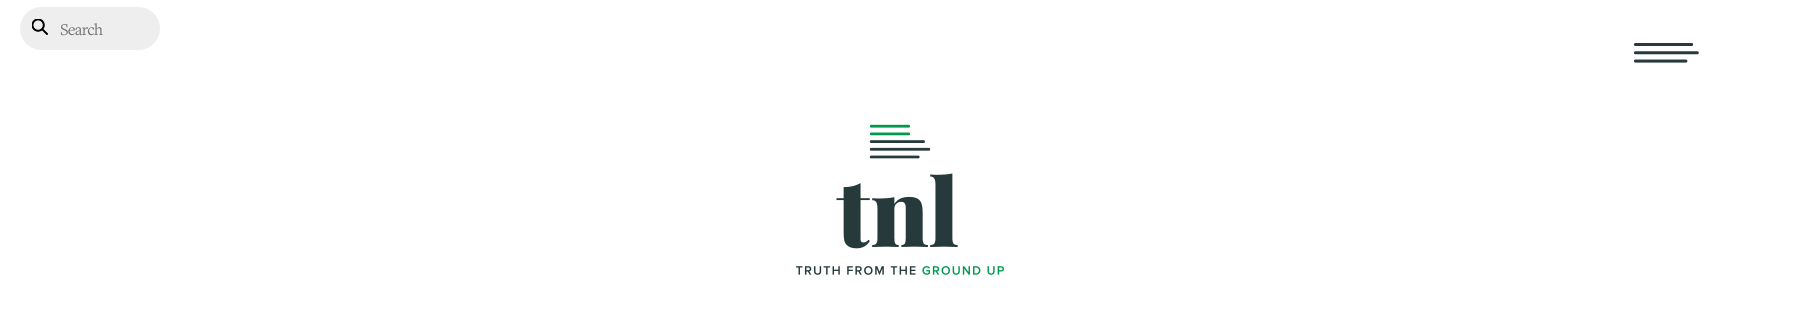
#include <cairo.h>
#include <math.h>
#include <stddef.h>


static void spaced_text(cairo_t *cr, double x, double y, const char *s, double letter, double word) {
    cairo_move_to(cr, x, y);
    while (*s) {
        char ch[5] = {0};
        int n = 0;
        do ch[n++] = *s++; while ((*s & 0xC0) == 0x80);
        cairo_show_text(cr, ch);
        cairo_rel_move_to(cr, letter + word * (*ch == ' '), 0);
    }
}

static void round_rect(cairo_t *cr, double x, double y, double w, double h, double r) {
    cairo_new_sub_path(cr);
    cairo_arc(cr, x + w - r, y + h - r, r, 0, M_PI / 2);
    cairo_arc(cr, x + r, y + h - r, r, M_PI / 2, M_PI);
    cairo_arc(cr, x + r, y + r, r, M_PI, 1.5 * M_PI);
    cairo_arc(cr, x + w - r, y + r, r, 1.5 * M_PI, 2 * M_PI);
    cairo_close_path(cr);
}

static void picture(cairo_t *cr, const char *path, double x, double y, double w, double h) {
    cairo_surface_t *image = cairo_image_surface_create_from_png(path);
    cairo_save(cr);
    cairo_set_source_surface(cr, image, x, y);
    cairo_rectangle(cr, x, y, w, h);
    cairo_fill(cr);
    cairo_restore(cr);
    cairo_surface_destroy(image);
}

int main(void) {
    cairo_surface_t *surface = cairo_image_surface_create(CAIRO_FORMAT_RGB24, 1799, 313);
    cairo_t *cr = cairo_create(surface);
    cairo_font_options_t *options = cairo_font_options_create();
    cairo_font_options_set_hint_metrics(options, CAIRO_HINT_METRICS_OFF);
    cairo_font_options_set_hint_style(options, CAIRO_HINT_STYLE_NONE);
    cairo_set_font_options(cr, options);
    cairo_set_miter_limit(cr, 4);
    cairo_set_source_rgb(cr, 1, 1, 1);
    cairo_paint(cr);
    cairo_set_source_rgb(cr, 0.933, 0.933, 0.933);
    round_rect(cr, 20, 7, 140, 43, 21.5);
    cairo_fill(cr);
    picture(cr, "img1.png", 32, 19, 16, 16);
    cairo_select_font_face(cr, "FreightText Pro", CAIRO_FONT_SLANT_NORMAL, CAIRO_FONT_WEIGHT_NORMAL);
    cairo_set_font_size(cr, 17);
    cairo_set_source_rgb(cr, 0.459, 0.459, 0.459);
    spaced_text(cr, 60, 35, "Search", -0.75, 0);
    picture(cr, "img2.png", 1634, 43, 65, 20);
    picture(cr, "img3.png", 796, 124, 208, 151);
    cairo_surface_write_to_png(surface, "page.png");
    cairo_font_options_destroy(options);
    cairo_destroy(cr);
    cairo_surface_destroy(surface);
    return 0;
}
